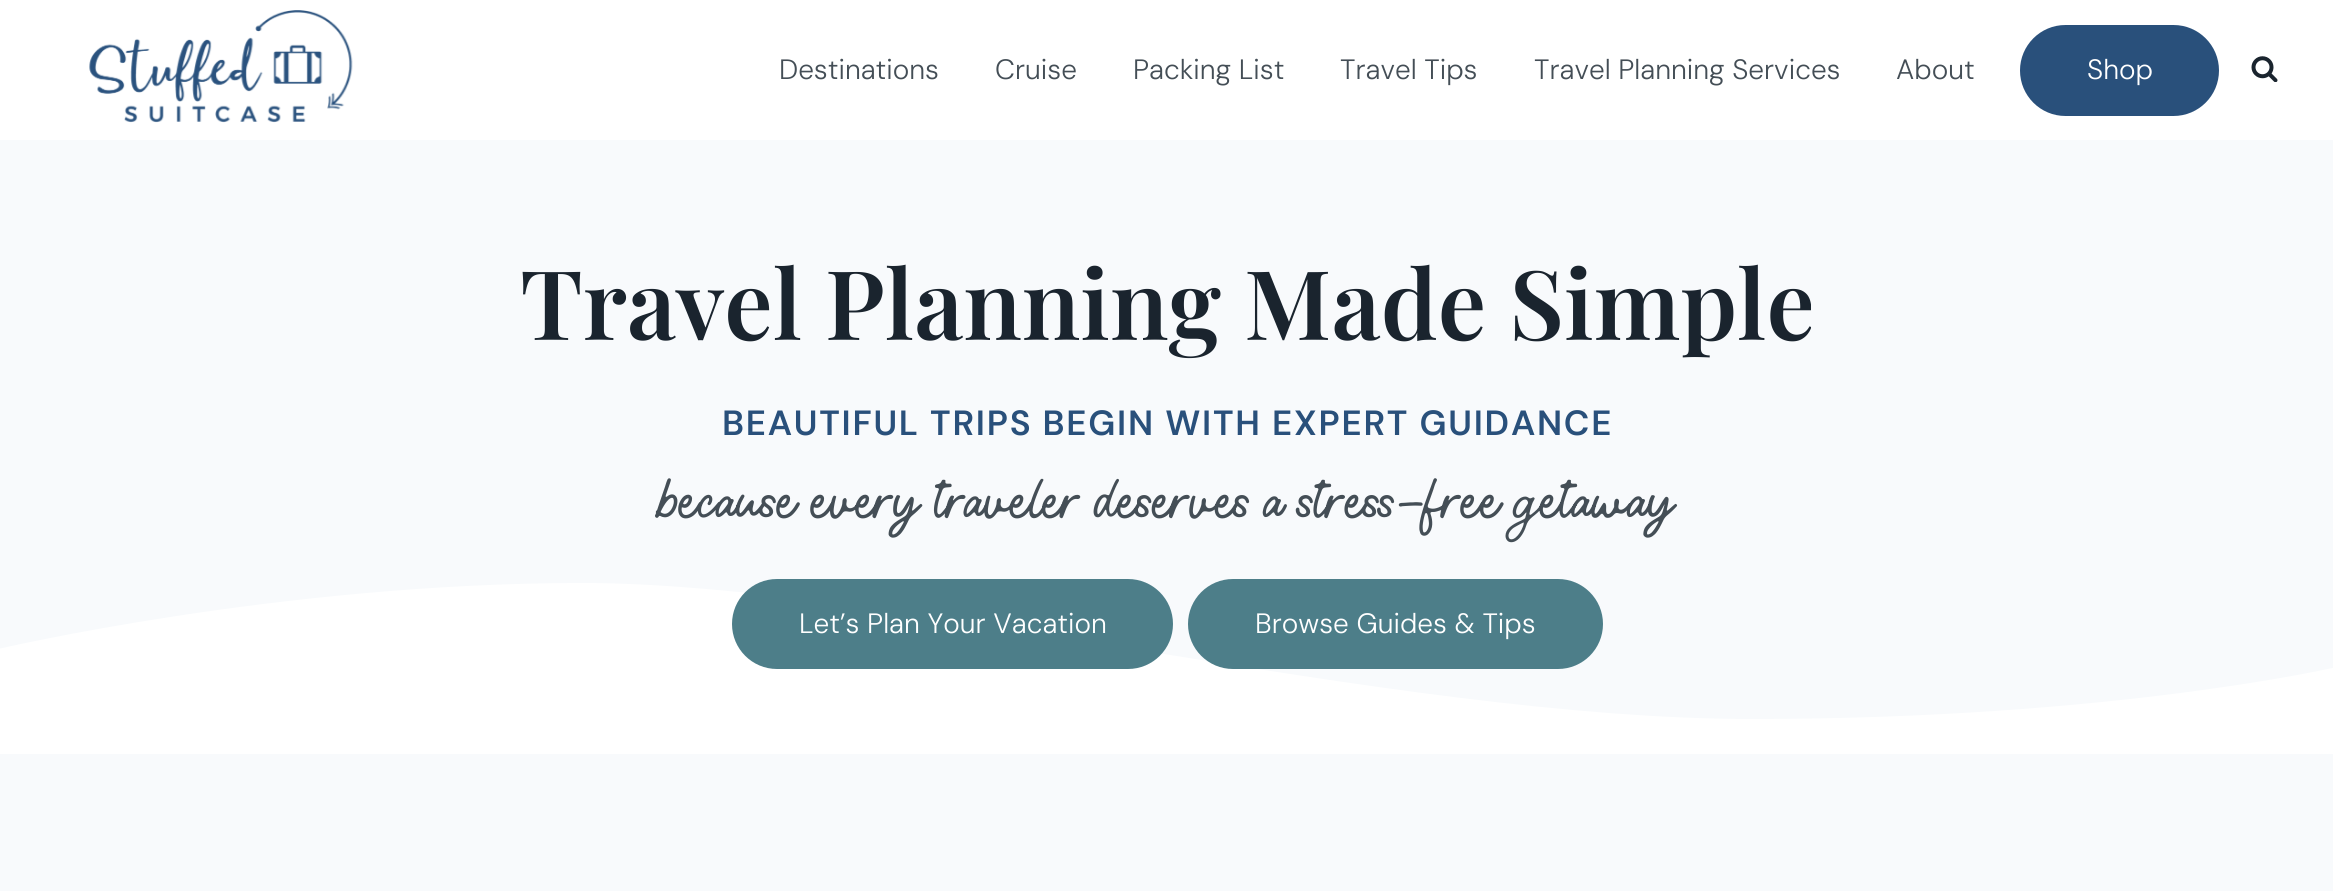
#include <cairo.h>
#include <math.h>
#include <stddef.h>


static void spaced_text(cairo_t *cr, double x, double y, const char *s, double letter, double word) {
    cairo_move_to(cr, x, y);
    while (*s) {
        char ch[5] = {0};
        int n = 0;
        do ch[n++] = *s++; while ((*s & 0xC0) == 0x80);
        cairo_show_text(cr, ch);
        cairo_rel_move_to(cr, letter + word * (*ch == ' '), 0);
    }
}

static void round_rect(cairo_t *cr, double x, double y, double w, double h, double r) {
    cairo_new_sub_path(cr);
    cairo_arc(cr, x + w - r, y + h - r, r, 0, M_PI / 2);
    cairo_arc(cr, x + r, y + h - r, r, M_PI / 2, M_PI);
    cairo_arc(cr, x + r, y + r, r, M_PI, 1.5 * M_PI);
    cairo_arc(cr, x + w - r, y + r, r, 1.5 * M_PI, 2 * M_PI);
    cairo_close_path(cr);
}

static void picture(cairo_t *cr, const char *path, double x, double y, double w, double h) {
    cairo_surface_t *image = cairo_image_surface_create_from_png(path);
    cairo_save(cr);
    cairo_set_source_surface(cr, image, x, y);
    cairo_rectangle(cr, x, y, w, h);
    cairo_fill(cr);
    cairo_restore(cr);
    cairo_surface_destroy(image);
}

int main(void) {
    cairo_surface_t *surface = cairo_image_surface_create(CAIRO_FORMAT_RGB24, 2333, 891);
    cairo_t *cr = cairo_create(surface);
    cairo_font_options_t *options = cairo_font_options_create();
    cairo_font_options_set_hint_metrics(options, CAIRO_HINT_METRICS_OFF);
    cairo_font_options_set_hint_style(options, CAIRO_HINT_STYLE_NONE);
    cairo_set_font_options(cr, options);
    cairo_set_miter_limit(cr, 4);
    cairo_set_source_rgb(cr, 1, 1, 1);
    cairo_paint(cr);
    picture(cr, "img1.png", 89, 10, 264, 113);
    cairo_select_font_face(cr, "DM Sans Light", CAIRO_FONT_SLANT_NORMAL, CAIRO_FONT_WEIGHT_NORMAL);
    cairo_set_font_size(cr, 28);
    cairo_set_source_rgb(cr, 0.267, 0.306, 0.337);
    cairo_move_to(cr, 779, 79);
    cairo_show_text(cr, "Destinations");
    cairo_move_to(cr, 995, 79);
    cairo_show_text(cr, "Cruise");
    cairo_move_to(cr, 1133, 79);
    cairo_show_text(cr, "Packing List");
    cairo_move_to(cr, 1340, 79);
    cairo_show_text(cr, "Travel Tips");
    cairo_move_to(cr, 1534, 79);
    cairo_show_text(cr, "Travel Planning Services");
    cairo_move_to(cr, 1896, 79);
    cairo_show_text(cr, "About");
    cairo_set_source_rgb(cr, 0.161, 0.314, 0.482);
    round_rect(cr, 2020, 25, 199, 91, 45.5);
    cairo_fill(cr);
    cairo_set_source_rgb(cr, 1, 1, 1);
    cairo_move_to(cr, 2087, 79);
    cairo_show_text(cr, "Shop");
    picture(cr, "img2.png", 2251, 56, 27, 26);
    cairo_set_source_rgb(cr, 0.969, 0.98, 0.988);
    cairo_rectangle(cr, 0, 140, 2333, 579);
    cairo_fill(cr);
    cairo_select_font_face(cr, "Playfair Display SemiBold", CAIRO_FONT_SLANT_NORMAL, CAIRO_FONT_WEIGHT_NORMAL);
    cairo_set_font_size(cr, 96.25);
    cairo_set_source_rgb(cr, 0.102, 0.141, 0.18);
    cairo_move_to(cr, 520, 340);
    cairo_show_text(cr, "Travel Planning Made Simple");
    cairo_select_font_face(cr, "DM Sans SemiBold", CAIRO_FONT_SLANT_NORMAL, CAIRO_FONT_WEIGHT_NORMAL);
    cairo_set_font_size(cr, 35);
    cairo_set_source_rgb(cr, 0.161, 0.314, 0.482);
    spaced_text(cr, 722, 435, "BEAUTIFUL TRIPS BEGIN WITH EXPERT GUIDANCE", 1.75, 0);
    cairo_select_font_face(cr, "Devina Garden", CAIRO_FONT_SLANT_NORMAL, CAIRO_FONT_WEIGHT_NORMAL);
    cairo_set_font_size(cr, 56);
    cairo_set_source_rgb(cr, 0.267, 0.306, 0.337);
    cairo_move_to(cr, 660, 522);
    cairo_show_text(cr, "because every traveler deserves a stress-free getaway");
    cairo_set_source_rgb(cr, 1, 1, 1);
    cairo_new_path(cr);
    cairo_move_to(cr, -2, 649);
    cairo_curve_to(cr, -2, 649, 279, 583, 582, 583);
    cairo_curve_to(cr, 886, 583, 1390, 719, 1752, 719);
    cairo_curve_to(cr, 2114, 719, 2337, 667, 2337, 667);
    cairo_line_to(cr, 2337, 754);
    cairo_line_to(cr, -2, 754);
    cairo_close_path(cr);
    cairo_fill(cr);
    cairo_set_source_rgb(cr, 0.302, 0.494, 0.537);
    round_rect(cr, 732, 579, 441, 90, 45);
    cairo_fill(cr);
    cairo_select_font_face(cr, "DM Sans Light", CAIRO_FONT_SLANT_NORMAL, CAIRO_FONT_WEIGHT_NORMAL);
    cairo_set_font_size(cr, 28);
    cairo_set_source_rgb(cr, 1, 1, 1);
    cairo_move_to(cr, 799, 633);
    cairo_show_text(cr, "Let’s Plan Your Vacation");
    cairo_set_source_rgb(cr, 0.302, 0.494, 0.537);
    round_rect(cr, 1188, 579, 415, 90, 45);
    cairo_fill(cr);
    cairo_set_source_rgb(cr, 1, 1, 1);
    cairo_move_to(cr, 1255, 633);
    cairo_show_text(cr, "Browse Guides & Tips");
    cairo_set_source_rgb(cr, 0.969, 0.98, 0.988);
    cairo_rectangle(cr, 0, 754, 2333, 137);
    cairo_fill(cr);
    cairo_surface_write_to_png(surface, "page.png");
    cairo_font_options_destroy(options);
    cairo_destroy(cr);
    cairo_surface_destroy(surface);
    return 0;
}
